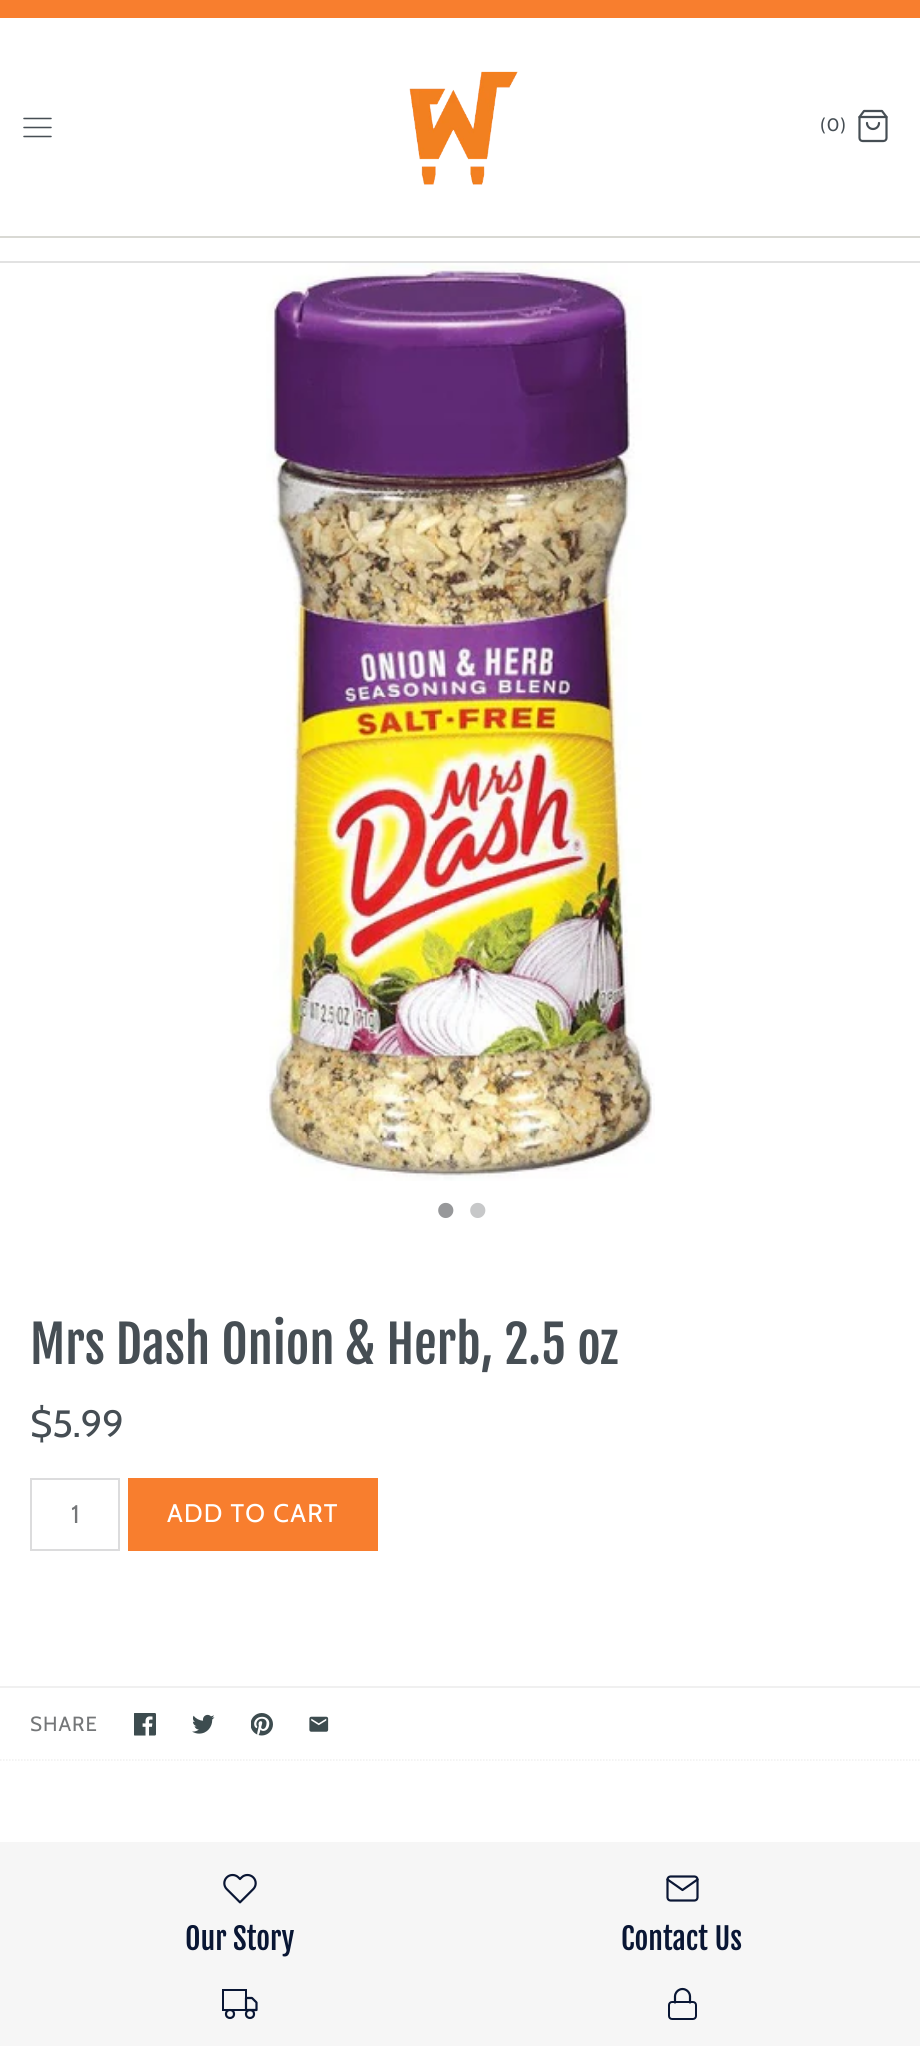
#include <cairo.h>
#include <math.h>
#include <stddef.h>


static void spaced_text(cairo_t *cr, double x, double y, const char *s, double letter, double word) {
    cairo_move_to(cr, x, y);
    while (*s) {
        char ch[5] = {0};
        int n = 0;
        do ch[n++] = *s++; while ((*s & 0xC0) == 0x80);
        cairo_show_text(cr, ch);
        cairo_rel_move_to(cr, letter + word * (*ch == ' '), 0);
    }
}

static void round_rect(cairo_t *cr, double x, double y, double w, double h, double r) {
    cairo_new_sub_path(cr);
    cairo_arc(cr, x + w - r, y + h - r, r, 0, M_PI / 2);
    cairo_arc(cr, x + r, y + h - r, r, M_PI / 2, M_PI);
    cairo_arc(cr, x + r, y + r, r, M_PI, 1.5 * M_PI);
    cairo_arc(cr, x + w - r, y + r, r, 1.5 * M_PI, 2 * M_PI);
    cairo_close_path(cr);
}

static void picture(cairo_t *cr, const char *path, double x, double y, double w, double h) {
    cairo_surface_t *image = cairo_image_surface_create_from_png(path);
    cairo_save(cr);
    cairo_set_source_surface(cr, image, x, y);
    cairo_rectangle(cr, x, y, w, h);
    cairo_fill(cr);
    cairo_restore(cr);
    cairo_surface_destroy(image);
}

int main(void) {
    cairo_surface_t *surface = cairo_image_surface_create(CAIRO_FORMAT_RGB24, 920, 2046);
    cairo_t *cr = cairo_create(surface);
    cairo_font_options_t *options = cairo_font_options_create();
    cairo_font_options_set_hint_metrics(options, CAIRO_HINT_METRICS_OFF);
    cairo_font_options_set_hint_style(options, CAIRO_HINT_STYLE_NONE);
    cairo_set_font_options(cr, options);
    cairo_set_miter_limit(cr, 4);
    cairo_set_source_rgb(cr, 1, 1, 1);
    cairo_paint(cr);
    cairo_set_source_rgb(cr, 0.969, 0.494, 0.18);
    cairo_rectangle(cr, 0, 0, 920, 18);
    cairo_fill(cr);
    cairo_set_source_rgb(cr, 0.851, 0.851, 0.831);
    cairo_rectangle(cr, 0, 236, 920, 2);
    cairo_fill(cr);
    cairo_new_path(cr);
    cairo_move_to(cr, 24, 127.5);
    cairo_line_to(cr, 51, 127.5);
    cairo_move_to(cr, 24, 118.5);
    cairo_line_to(cr, 51, 118.5);
    cairo_move_to(cr, 24, 136.5);
    cairo_line_to(cr, 51, 136.5);
    cairo_set_source_rgb(cr, 0.275, 0.306, 0.329);
    cairo_set_line_width(cr, 1.5);
    cairo_set_line_cap(cr, CAIRO_LINE_CAP_ROUND);
    cairo_set_line_join(cr, CAIRO_LINE_JOIN_ROUND);
    cairo_stroke(cr);
    picture(cr, "img1.png", 409, 71, 109, 114);
    cairo_select_font_face(cr, "Cabin", CAIRO_FONT_SLANT_NORMAL, CAIRO_FONT_WEIGHT_NORMAL);
    cairo_set_font_size(cr, 18);
    spaced_text(cr, 820, 131, "(0)", 1, 0);
    picture(cr, "img2.png", 858, 109, 30, 34);
    cairo_set_source_rgb(cr, 0.886, 0.886, 0.886);
    cairo_rectangle(cr, 0, 261, 920, 2);
    cairo_fill(cr);
    picture(cr, "img3.png", 266, 263, 389, 918);
    cairo_select_font_face(cr, "Liberation Mono", CAIRO_FONT_SLANT_NORMAL, CAIRO_FONT_WEIGHT_NORMAL);
    cairo_set_font_size(cr, 56);
    cairo_set_source_rgb(cr, 0.592, 0.596, 0.604);
    cairo_move_to(cr, 429, 1229);
    cairo_show_text(cr, "•");
    cairo_set_source_rgb(cr, 0.78, 0.784, 0.788);
    cairo_move_to(cr, 461, 1229);
    cairo_show_text(cr, "•");
    cairo_select_font_face(cr, "Fjalla One", CAIRO_FONT_SLANT_NORMAL, CAIRO_FONT_WEIGHT_NORMAL);
    cairo_set_font_size(cr, 51);
    cairo_set_source_rgb(cr, 0.275, 0.306, 0.329);
    cairo_move_to(cr, 30, 1364);
    cairo_show_text(cr, "Mrs Dash Onion & Herb, 2.5 oz");
    cairo_select_font_face(cr, "Cabin", CAIRO_FONT_SLANT_NORMAL, CAIRO_FONT_WEIGHT_NORMAL);
    cairo_set_font_size(cr, 38);
    cairo_move_to(cr, 30, 1437);
    cairo_show_text(cr, "$5.99");
    cairo_rectangle(cr, 31, 1479, 88, 71);
    cairo_set_source_rgb(cr, 0.863, 0.863, 0.867);
    cairo_set_line_width(cr, 2);
    cairo_set_line_cap(cr, CAIRO_LINE_CAP_BUTT);
    cairo_set_line_join(cr, CAIRO_LINE_JOIN_MITER);
    cairo_stroke(cr);
    cairo_set_font_size(cr, 25.5);
    cairo_set_source_rgb(cr, 0.455, 0.463, 0.471);
    cairo_move_to(cr, 71, 1523);
    cairo_show_text(cr, "1");
    cairo_set_source_rgb(cr, 0.969, 0.494, 0.18);
    cairo_rectangle(cr, 128, 1478, 250, 73);
    cairo_fill(cr);
    cairo_set_source_rgb(cr, 1, 1, 1);
    spaced_text(cr, 167, 1522, "ADD TO CART", 1.25, 0);
    cairo_set_source_rgb(cr, 0.941, 0.941, 0.941);
    cairo_rectangle(cr, 0, 1686, 920, 2);
    cairo_fill(cr);
    cairo_new_path(cr);
    cairo_move_to(cr, 0, 1760);
    cairo_line_to(cr, 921, 1760);
    cairo_set_line_width(cr, 1.5);
    cairo_set_dash(cr, (double[]){1.5, 1.5}, 2, 0);
    cairo_stroke(cr);
    cairo_set_font_size(cr, 20.5);
    cairo_set_source_rgb(cr, 0.455, 0.463, 0.471);
    spaced_text(cr, 30, 1731, "SHARE", 1, 0);
    picture(cr, "img4.png", 134, 1713, 22, 23);
    picture(cr, "img5.png", 192, 1714, 23, 20);
    picture(cr, "img6.png", 251, 1713, 22, 23);
    picture(cr, "img7.png", 309, 1716, 20, 16);
    cairo_set_source_rgb(cr, 0.961, 0.961, 0.961);
    cairo_rectangle(cr, 0, 1842, 920, 204);
    cairo_fill(cr);
    picture(cr, "img8.png", 223, 1873, 34, 31);
    cairo_select_font_face(cr, "Fjalla One", CAIRO_FONT_SLANT_NORMAL, CAIRO_FONT_WEIGHT_NORMAL);
    cairo_set_font_size(cr, 29.75);
    cairo_set_source_rgb(cr, 0.039, 0.086, 0.204);
    cairo_move_to(cr, 185, 1950);
    cairo_show_text(cr, "Our Story");
    picture(cr, "img9.png", 666, 1875, 33, 27);
    cairo_move_to(cr, 621, 1950);
    cairo_show_text(cr, "Contact Us");
    cairo_rectangle(cr, 223, 1990, 23, 20);
    cairo_set_line_width(cr, 2);
    cairo_set_dash(cr, NULL, 0, 0);
    cairo_stroke(cr);
    cairo_new_path(cr);
    cairo_move_to(cr, 246, 1998);
    cairo_line_to(cr, 252, 1998);
    cairo_line_to(cr, 256.5, 2002.5);
    cairo_line_to(cr, 256.5, 2010);
    cairo_line_to(cr, 246, 2010);
    cairo_close_path(cr);
    cairo_set_line_width(cr, 2.2);
    cairo_set_line_cap(cr, CAIRO_LINE_CAP_ROUND);
    cairo_set_line_join(cr, CAIRO_LINE_JOIN_ROUND);
    cairo_stroke(cr);
    cairo_arc(cr, 230, 2014, 4, 0, 2 * M_PI);
    cairo_set_line_cap(cr, CAIRO_LINE_CAP_BUTT);
    cairo_set_line_join(cr, CAIRO_LINE_JOIN_MITER);
    cairo_stroke(cr);
    cairo_arc(cr, 250, 2014, 4, 0, 2 * M_PI);
    cairo_stroke(cr);
    round_rect(cr, 669, 2002, 27, 17, 3);
    cairo_set_line_width(cr, 2);
    cairo_stroke(cr);
    cairo_new_path(cr);
    cairo_move_to(cr, 675, 2002.5);
    cairo_line_to(cr, 675, 1996.5);
    cairo_curve_to(cr, 675, 1992.5, 678.5, 1989, 682.5, 1989);
    cairo_curve_to(cr, 686.5, 1989, 690, 1992.5, 690, 1996.5);
    cairo_line_to(cr, 690, 2002.5);
    cairo_set_line_width(cr, 2.2);
    cairo_set_line_cap(cr, CAIRO_LINE_CAP_ROUND);
    cairo_set_line_join(cr, CAIRO_LINE_JOIN_ROUND);
    cairo_stroke(cr);
    cairo_surface_write_to_png(surface, "page.png");
    cairo_font_options_destroy(options);
    cairo_destroy(cr);
    cairo_surface_destroy(surface);
    return 0;
}
